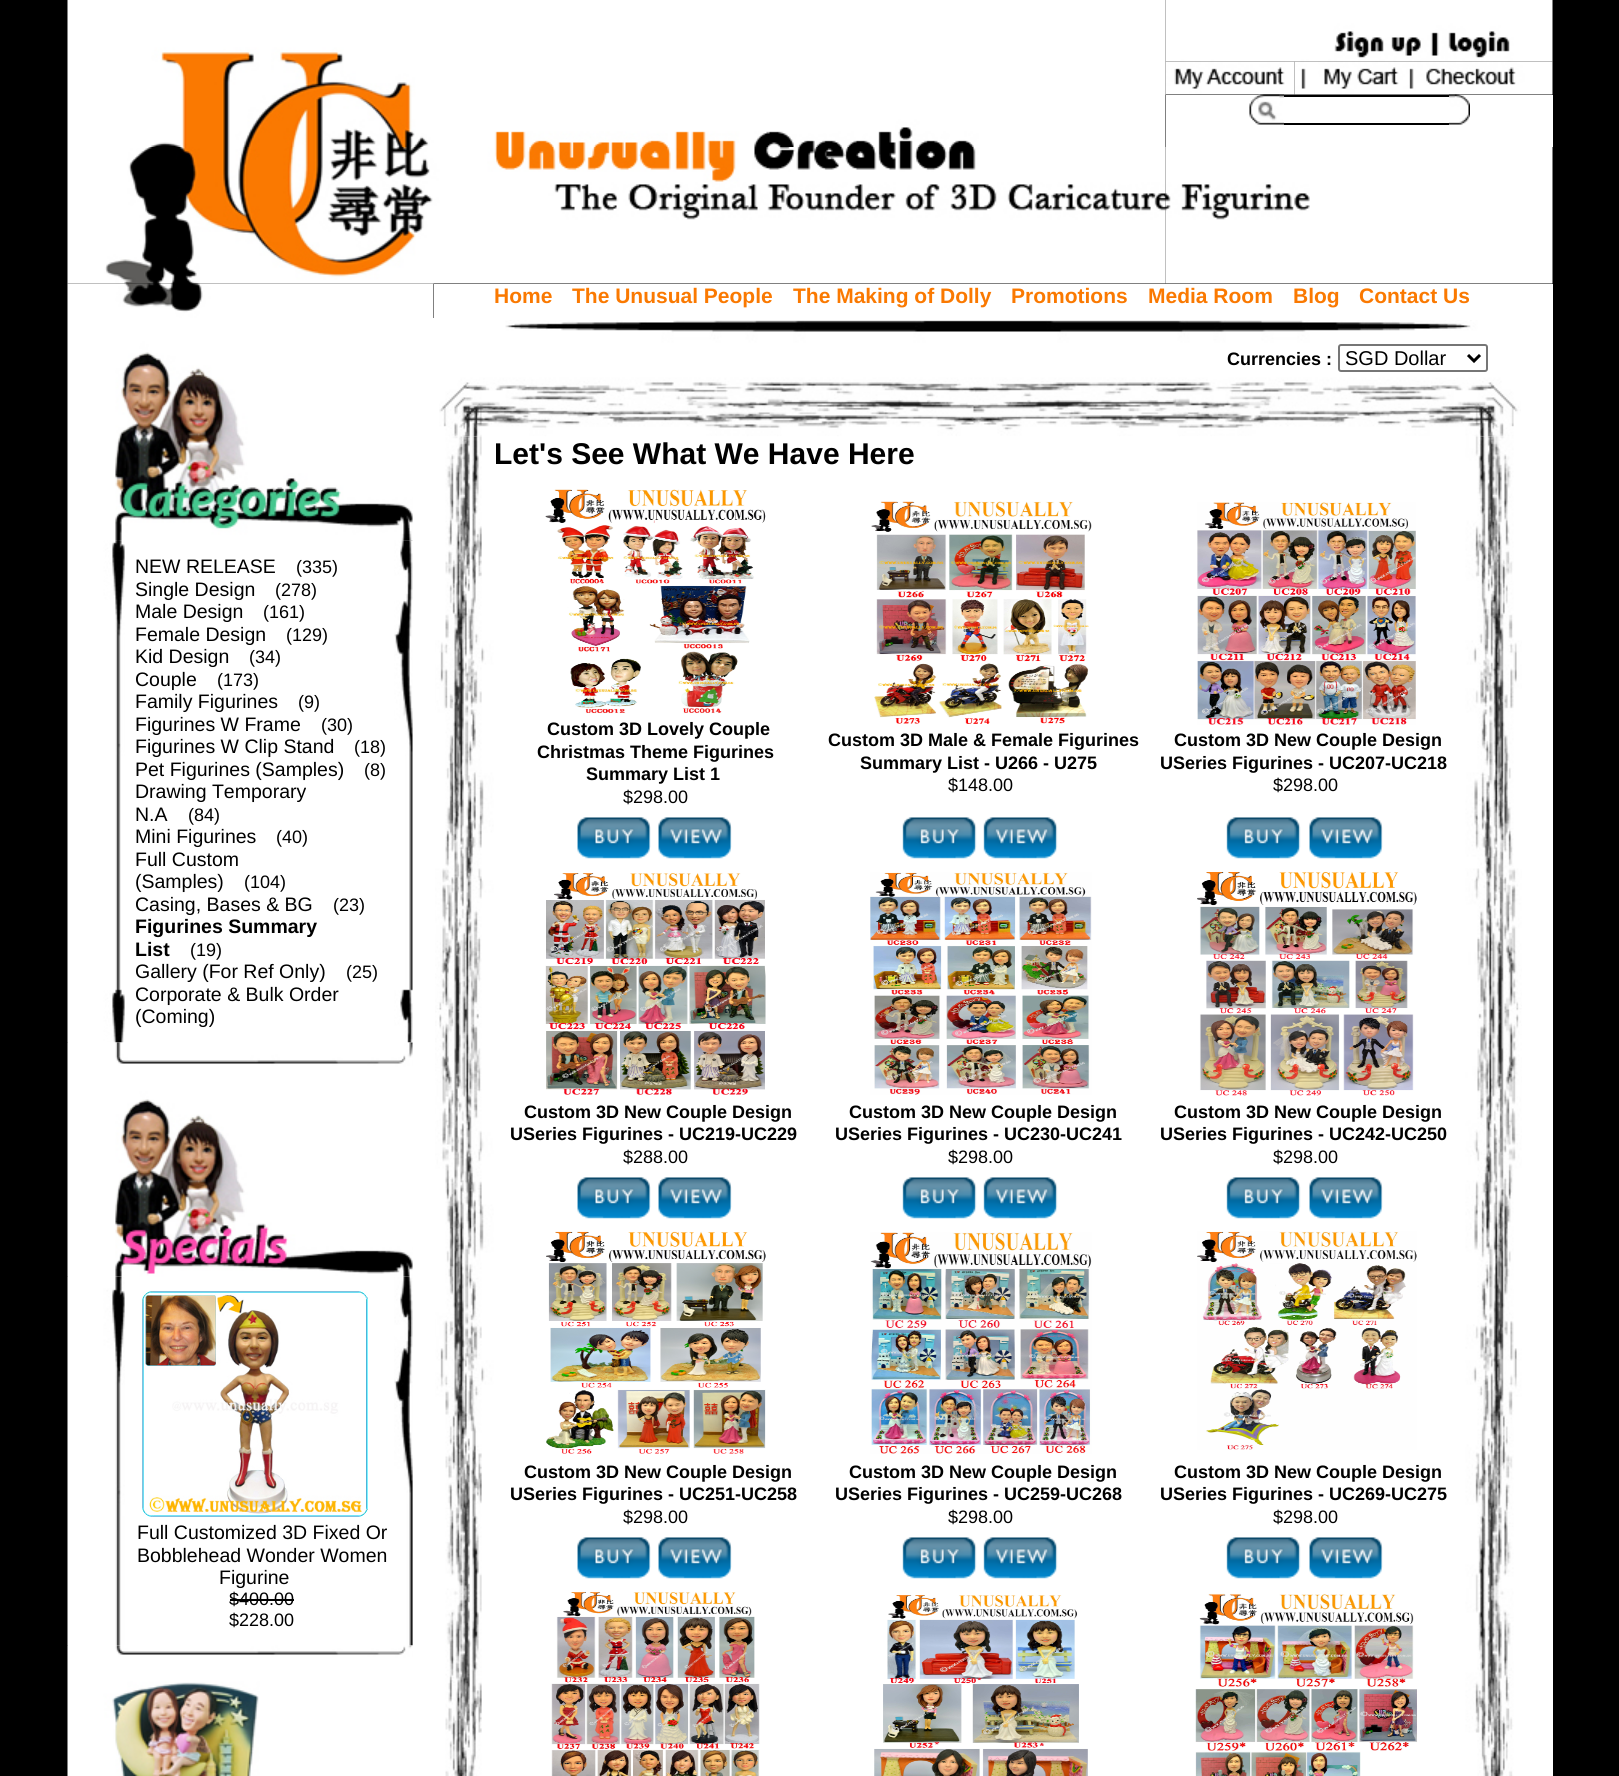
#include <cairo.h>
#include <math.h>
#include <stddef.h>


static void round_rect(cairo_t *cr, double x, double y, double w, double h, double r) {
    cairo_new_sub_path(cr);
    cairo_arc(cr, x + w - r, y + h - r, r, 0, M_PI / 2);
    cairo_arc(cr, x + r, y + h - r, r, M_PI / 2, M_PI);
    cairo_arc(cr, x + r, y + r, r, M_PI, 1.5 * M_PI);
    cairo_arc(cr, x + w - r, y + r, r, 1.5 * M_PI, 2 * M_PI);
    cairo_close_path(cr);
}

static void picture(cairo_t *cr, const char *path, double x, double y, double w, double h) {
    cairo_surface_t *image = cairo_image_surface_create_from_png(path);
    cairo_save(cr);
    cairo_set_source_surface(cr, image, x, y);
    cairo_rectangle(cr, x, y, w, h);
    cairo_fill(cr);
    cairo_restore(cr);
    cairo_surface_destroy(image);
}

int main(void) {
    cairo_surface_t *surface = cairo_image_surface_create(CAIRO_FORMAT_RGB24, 1619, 1776);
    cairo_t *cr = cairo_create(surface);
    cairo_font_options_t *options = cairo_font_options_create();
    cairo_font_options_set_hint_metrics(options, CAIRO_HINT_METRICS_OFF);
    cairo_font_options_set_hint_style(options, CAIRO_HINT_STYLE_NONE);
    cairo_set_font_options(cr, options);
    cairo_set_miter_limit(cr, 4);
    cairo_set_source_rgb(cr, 0, 0, 0);
    cairo_paint(cr);
    picture(cr, "img1.png", 67, 0, 1099, 147);
    picture(cr, "img2.png", 1165, 0, 388, 62);
    picture(cr, "img3.png", 1165, 61, 130, 34);
    picture(cr, "img4.png", 1294, 61, 122, 34);
    picture(cr, "img5.png", 1416, 61, 137, 34);
    cairo_set_source_rgb(cr, 1, 1, 1);
    cairo_rectangle(cr, 1166, 95, 387, 52);
    cairo_fill(cr);
    picture(cr, "img6.png", 1249, 94, 35, 31);
    cairo_set_source_rgb(cr, 0, 0, 0);
    cairo_rectangle(cr, 1284, 95, 165, 2);
    cairo_fill(cr);
    cairo_rectangle(cr, 1284, 123, 165, 2);
    cairo_fill(cr);
    picture(cr, "img7.png", 1449, 94, 21, 31);
    picture(cr, "img8.png", 67, 147, 1099, 137);
    picture(cr, "img9.png", 1165, 147, 388, 137);
    picture(cr, "img10.png", 67, 283, 367, 35);
    cairo_set_source_rgb(cr, 1, 1, 1);
    cairo_rectangle(cr, 434, 284, 1119, 34);
    cairo_fill(cr);
    cairo_select_font_face(cr, "Liberation Sans", CAIRO_FONT_SLANT_NORMAL, CAIRO_FONT_WEIGHT_BOLD);
    cairo_set_font_size(cr, 21);
    cairo_set_source_rgb(cr, 0.98, 0.475, 0.004);
    cairo_move_to(cr, 494, 303);
    cairo_show_text(cr, "Home");
    cairo_move_to(cr, 572, 303);
    cairo_show_text(cr, "The Unusual People");
    cairo_move_to(cr, 793, 303);
    cairo_show_text(cr, "The Making of Dolly");
    cairo_move_to(cr, 1011, 303);
    cairo_show_text(cr, "Promotions");
    cairo_move_to(cr, 1148, 303);
    cairo_show_text(cr, "Media Room");
    cairo_move_to(cr, 1293, 303);
    cairo_show_text(cr, "Blog");
    cairo_move_to(cr, 1359, 303);
    cairo_show_text(cr, "Contact Us");
    cairo_set_source_rgb(cr, 1, 1, 1);
    cairo_rectangle(cr, 68, 318, 1485, 1458);
    cairo_fill(cr);
    picture(cr, "img11.png", 67, 318, 346, 222);
    picture(cr, "img12.png", 67, 540, 58, 503);
    cairo_select_font_face(cr, "Liberation Sans", CAIRO_FONT_SLANT_NORMAL, CAIRO_FONT_WEIGHT_NORMAL);
    cairo_set_font_size(cr, 19.5);
    cairo_set_source_rgb(cr, 0, 0, 0);
    cairo_move_to(cr, 135, 573);
    cairo_show_text(cr, "NEW RELEASE");
    cairo_set_font_size(cr, 18);
    cairo_move_to(cr, 296, 573);
    cairo_show_text(cr, "(335)");
    cairo_set_font_size(cr, 19.5);
    cairo_move_to(cr, 135, 596);
    cairo_show_text(cr, "Single Design");
    cairo_set_font_size(cr, 18);
    cairo_move_to(cr, 275, 596);
    cairo_show_text(cr, "(278)");
    cairo_set_font_size(cr, 19.5);
    cairo_move_to(cr, 135, 618);
    cairo_show_text(cr, "Male Design");
    cairo_set_font_size(cr, 18);
    cairo_move_to(cr, 263, 618);
    cairo_show_text(cr, "(161)");
    cairo_set_font_size(cr, 19.5);
    cairo_move_to(cr, 135, 641);
    cairo_show_text(cr, "Female Design");
    cairo_set_font_size(cr, 18);
    cairo_move_to(cr, 286, 641);
    cairo_show_text(cr, "(129)");
    cairo_set_font_size(cr, 19.5);
    cairo_move_to(cr, 135, 663);
    cairo_show_text(cr, "Kid Design");
    cairo_set_font_size(cr, 18);
    cairo_move_to(cr, 249, 663);
    cairo_show_text(cr, "(34)");
    cairo_set_font_size(cr, 19.5);
    cairo_move_to(cr, 135, 686);
    cairo_show_text(cr, "Couple");
    cairo_set_font_size(cr, 18);
    cairo_move_to(cr, 217, 686);
    cairo_show_text(cr, "(173)");
    cairo_set_font_size(cr, 19.5);
    cairo_move_to(cr, 135, 708);
    cairo_show_text(cr, "Family Figurines");
    cairo_set_font_size(cr, 18);
    cairo_move_to(cr, 298, 708);
    cairo_show_text(cr, "(9)");
    cairo_set_font_size(cr, 19.5);
    cairo_move_to(cr, 135, 731);
    cairo_show_text(cr, "Figurines W Frame");
    cairo_set_font_size(cr, 18);
    cairo_move_to(cr, 321, 731);
    cairo_show_text(cr, "(30)");
    cairo_set_font_size(cr, 19.5);
    cairo_move_to(cr, 135, 753);
    cairo_show_text(cr, "Figurines W Clip Stand");
    cairo_set_font_size(cr, 18);
    cairo_move_to(cr, 354, 753);
    cairo_show_text(cr, "(18)");
    cairo_set_font_size(cr, 19.5);
    cairo_move_to(cr, 135, 776);
    cairo_show_text(cr, "Pet Figurines (Samples)");
    cairo_set_font_size(cr, 18);
    cairo_move_to(cr, 364, 776);
    cairo_show_text(cr, "(8)");
    cairo_set_font_size(cr, 19.5);
    cairo_move_to(cr, 135, 798);
    cairo_show_text(cr, "Drawing Temporary");
    cairo_move_to(cr, 135, 821);
    cairo_show_text(cr, "N.A");
    cairo_set_font_size(cr, 18);
    cairo_move_to(cr, 188, 821);
    cairo_show_text(cr, "(84)");
    cairo_set_font_size(cr, 19.5);
    cairo_move_to(cr, 135, 843);
    cairo_show_text(cr, "Mini Figurines");
    cairo_set_font_size(cr, 18);
    cairo_move_to(cr, 276, 843);
    cairo_show_text(cr, "(40)");
    cairo_set_font_size(cr, 19.5);
    cairo_move_to(cr, 135, 866);
    cairo_show_text(cr, "Full Custom");
    cairo_move_to(cr, 135, 888);
    cairo_show_text(cr, "(Samples)");
    cairo_set_font_size(cr, 18);
    cairo_move_to(cr, 244, 888);
    cairo_show_text(cr, "(104)");
    cairo_set_font_size(cr, 19.5);
    cairo_move_to(cr, 135, 911);
    cairo_show_text(cr, "Casing, Bases & BG");
    cairo_set_font_size(cr, 18);
    cairo_move_to(cr, 333, 911);
    cairo_show_text(cr, "(23)");
    cairo_select_font_face(cr, "Liberation Sans", CAIRO_FONT_SLANT_NORMAL, CAIRO_FONT_WEIGHT_BOLD);
    cairo_set_font_size(cr, 19.5);
    cairo_move_to(cr, 135, 933);
    cairo_show_text(cr, "Figurines Summary");
    cairo_move_to(cr, 135, 956);
    cairo_show_text(cr, "List");
    cairo_select_font_face(cr, "Liberation Sans", CAIRO_FONT_SLANT_NORMAL, CAIRO_FONT_WEIGHT_NORMAL);
    cairo_set_font_size(cr, 18);
    cairo_move_to(cr, 190, 956);
    cairo_show_text(cr, "(19)");
    cairo_set_font_size(cr, 19.5);
    cairo_move_to(cr, 135, 978);
    cairo_show_text(cr, "Gallery (For Ref Only)");
    cairo_set_font_size(cr, 18);
    cairo_move_to(cr, 346, 978);
    cairo_show_text(cr, "(25)");
    cairo_set_font_size(cr, 19.5);
    cairo_move_to(cr, 135, 1001);
    cairo_show_text(cr, "Corporate & Bulk Order");
    cairo_move_to(cr, 135, 1023);
    cairo_show_text(cr, "(Coming)");
    picture(cr, "img13.png", 394, 540, 19, 503);
    picture(cr, "img15.png", 67, 1276, 58, 370);
    picture(cr, "img17.png", 394, 1276, 19, 370);
    picture(cr, "img14.png", 67, 1042, 346, 235);
    picture(cr, "img16.png", 142, 1291, 226, 226);
    cairo_move_to(cr, 137, 1539);
    cairo_show_text(cr, "Full Customized 3D Fixed Or");
    cairo_move_to(cr, 137, 1562);
    cairo_show_text(cr, "Bobblehead Wonder Women");
    cairo_move_to(cr, 219, 1584);
    cairo_show_text(cr, "Figurine");
    cairo_set_font_size(cr, 18);
    cairo_move_to(cr, 229, 1605);
    cairo_show_text(cr, "$400.00");
    cairo_rectangle(cr, 230, 1599, 64, 2);
    cairo_fill(cr);
    cairo_move_to(cr, 229, 1626);
    cairo_show_text(cr, "$228.00");
    picture(cr, "img18.png", 67, 1645, 346, 131);
    picture(cr, "img19.png", 439, 320, 1082, 117);
    cairo_select_font_face(cr, "Liberation Sans", CAIRO_FONT_SLANT_NORMAL, CAIRO_FONT_WEIGHT_BOLD);
    cairo_move_to(cr, 1227, 365);
    cairo_show_text(cr, "Currencies :");
    round_rect(cr, 1339, 345, 148, 26, 2);
    cairo_set_source_rgb(cr, 0.463, 0.463, 0.463);
    cairo_stroke(cr);
    cairo_new_path(cr);
    cairo_move_to(cr, 1468, 355);
    cairo_line_to(cr, 1474, 361);
    cairo_line_to(cr, 1480, 355);
    cairo_set_source_rgb(cr, 0, 0, 0);
    cairo_set_line_width(cr, 3);
    cairo_stroke(cr);
    cairo_select_font_face(cr, "Liberation Sans", CAIRO_FONT_SLANT_NORMAL, CAIRO_FONT_WEIGHT_NORMAL);
    cairo_set_font_size(cr, 20);
    cairo_move_to(cr, 1345, 365);
    cairo_show_text(cr, "SGD Dollar");
    picture(cr, "img20.png", 435, 436, 1087, 1340);
    cairo_select_font_face(cr, "Liberation Sans", CAIRO_FONT_SLANT_NORMAL, CAIRO_FONT_WEIGHT_BOLD);
    cairo_set_font_size(cr, 30);
    cairo_move_to(cr, 494, 464);
    cairo_show_text(cr, "Let's See What We Have Here");
    picture(cr, "img21.png", 545, 489, 221, 225);
    cairo_set_font_size(cr, 18);
    cairo_move_to(cr, 547, 735);
    cairo_show_text(cr, "Custom 3D Lovely Couple");
    cairo_move_to(cr, 537, 758);
    cairo_show_text(cr, "Christmas Theme Figurines");
    cairo_move_to(cr, 586, 780);
    cairo_show_text(cr, "Summary List 1");
    cairo_select_font_face(cr, "Liberation Sans", CAIRO_FONT_SLANT_NORMAL, CAIRO_FONT_WEIGHT_NORMAL);
    cairo_move_to(cr, 623, 803);
    cairo_show_text(cr, "$298.00");
    picture(cr, "img22.png", 871, 501, 221, 223);
    cairo_select_font_face(cr, "Liberation Sans", CAIRO_FONT_SLANT_NORMAL, CAIRO_FONT_WEIGHT_BOLD);
    cairo_move_to(cr, 828, 746);
    cairo_show_text(cr, "Custom 3D Male & Female Figurines");
    cairo_move_to(cr, 860, 769);
    cairo_show_text(cr, "Summary List - U266 - U275");
    cairo_select_font_face(cr, "Liberation Sans", CAIRO_FONT_SLANT_NORMAL, CAIRO_FONT_WEIGHT_NORMAL);
    cairo_move_to(cr, 948, 791);
    cairo_show_text(cr, "$148.00");
    picture(cr, "img23.png", 1197, 502, 219, 223);
    cairo_select_font_face(cr, "Liberation Sans", CAIRO_FONT_SLANT_NORMAL, CAIRO_FONT_WEIGHT_BOLD);
    cairo_move_to(cr, 1174, 746);
    cairo_show_text(cr, "Custom 3D New Couple Design");
    cairo_move_to(cr, 1160, 769);
    cairo_show_text(cr, "USeries Figurines - UC207-UC218");
    cairo_select_font_face(cr, "Liberation Sans", CAIRO_FONT_SLANT_NORMAL, CAIRO_FONT_WEIGHT_NORMAL);
    cairo_move_to(cr, 1273, 791);
    cairo_show_text(cr, "$298.00");
    picture(cr, "img24.png", 577, 817, 74, 42);
    picture(cr, "img25.png", 658, 817, 74, 42);
    picture(cr, "img26.png", 902, 817, 75, 42);
    picture(cr, "img27.png", 983, 817, 75, 42);
    picture(cr, "img26.png", 1226, 817, 75, 42);
    picture(cr, "img28.png", 1309, 817, 74, 42);
    picture(cr, "img29.png", 545, 873, 221, 222);
    cairo_select_font_face(cr, "Liberation Sans", CAIRO_FONT_SLANT_NORMAL, CAIRO_FONT_WEIGHT_BOLD);
    cairo_move_to(cr, 524, 1118);
    cairo_show_text(cr, "Custom 3D New Couple Design");
    cairo_move_to(cr, 510, 1140);
    cairo_show_text(cr, "USeries Figurines - UC219-UC229");
    cairo_select_font_face(cr, "Liberation Sans", CAIRO_FONT_SLANT_NORMAL, CAIRO_FONT_WEIGHT_NORMAL);
    cairo_move_to(cr, 623, 1163);
    cairo_show_text(cr, "$288.00");
    picture(cr, "img30.png", 870, 872, 222, 223);
    cairo_select_font_face(cr, "Liberation Sans", CAIRO_FONT_SLANT_NORMAL, CAIRO_FONT_WEIGHT_BOLD);
    cairo_move_to(cr, 849, 1118);
    cairo_show_text(cr, "Custom 3D New Couple Design");
    cairo_move_to(cr, 835, 1140);
    cairo_show_text(cr, "USeries Figurines - UC230-UC241");
    cairo_select_font_face(cr, "Liberation Sans", CAIRO_FONT_SLANT_NORMAL, CAIRO_FONT_WEIGHT_NORMAL);
    cairo_move_to(cr, 948, 1163);
    cairo_show_text(cr, "$298.00");
    picture(cr, "img31.png", 1197, 872, 220, 224);
    cairo_select_font_face(cr, "Liberation Sans", CAIRO_FONT_SLANT_NORMAL, CAIRO_FONT_WEIGHT_BOLD);
    cairo_move_to(cr, 1174, 1118);
    cairo_show_text(cr, "Custom 3D New Couple Design");
    cairo_move_to(cr, 1160, 1140);
    cairo_show_text(cr, "USeries Figurines - UC242-UC250");
    cairo_select_font_face(cr, "Liberation Sans", CAIRO_FONT_SLANT_NORMAL, CAIRO_FONT_WEIGHT_NORMAL);
    cairo_move_to(cr, 1273, 1163);
    cairo_show_text(cr, "$298.00");
    picture(cr, "img24.png", 577, 1177, 74, 42);
    picture(cr, "img25.png", 658, 1177, 74, 42);
    picture(cr, "img26.png", 902, 1177, 75, 42);
    picture(cr, "img27.png", 983, 1177, 75, 42);
    picture(cr, "img26.png", 1226, 1177, 75, 42);
    picture(cr, "img28.png", 1309, 1177, 74, 42);
    picture(cr, "img32.png", 546, 1231, 220, 223);
    cairo_select_font_face(cr, "Liberation Sans", CAIRO_FONT_SLANT_NORMAL, CAIRO_FONT_WEIGHT_BOLD);
    cairo_move_to(cr, 524, 1478);
    cairo_show_text(cr, "Custom 3D New Couple Design");
    cairo_move_to(cr, 510, 1500);
    cairo_show_text(cr, "USeries Figurines - UC251-UC258");
    cairo_select_font_face(cr, "Liberation Sans", CAIRO_FONT_SLANT_NORMAL, CAIRO_FONT_WEIGHT_NORMAL);
    cairo_move_to(cr, 623, 1523);
    cairo_show_text(cr, "$298.00");
    picture(cr, "img33.png", 870, 1232, 222, 222);
    cairo_select_font_face(cr, "Liberation Sans", CAIRO_FONT_SLANT_NORMAL, CAIRO_FONT_WEIGHT_BOLD);
    cairo_move_to(cr, 849, 1478);
    cairo_show_text(cr, "Custom 3D New Couple Design");
    cairo_move_to(cr, 835, 1500);
    cairo_show_text(cr, "USeries Figurines - UC259-UC268");
    cairo_select_font_face(cr, "Liberation Sans", CAIRO_FONT_SLANT_NORMAL, CAIRO_FONT_WEIGHT_NORMAL);
    cairo_move_to(cr, 948, 1523);
    cairo_show_text(cr, "$298.00");
    picture(cr, "img34.png", 1197, 1231, 220, 219);
    cairo_select_font_face(cr, "Liberation Sans", CAIRO_FONT_SLANT_NORMAL, CAIRO_FONT_WEIGHT_BOLD);
    cairo_move_to(cr, 1174, 1478);
    cairo_show_text(cr, "Custom 3D New Couple Design");
    cairo_move_to(cr, 1160, 1500);
    cairo_show_text(cr, "USeries Figurines - UC269-UC275");
    cairo_select_font_face(cr, "Liberation Sans", CAIRO_FONT_SLANT_NORMAL, CAIRO_FONT_WEIGHT_NORMAL);
    cairo_move_to(cr, 1273, 1523);
    cairo_show_text(cr, "$298.00");
    picture(cr, "img24.png", 577, 1537, 74, 42);
    picture(cr, "img25.png", 658, 1537, 74, 42);
    picture(cr, "img26.png", 902, 1537, 75, 42);
    picture(cr, "img27.png", 983, 1537, 75, 42);
    picture(cr, "img26.png", 1226, 1537, 75, 42);
    picture(cr, "img28.png", 1309, 1537, 74, 42);
    picture(cr, "img35.png", 551, 1592, 209, 184);
    picture(cr, "img36.png", 874, 1595, 214, 181);
    picture(cr, "img37.png", 1195, 1593, 223, 183);
    cairo_surface_write_to_png(surface, "page.png");
    cairo_font_options_destroy(options);
    cairo_destroy(cr);
    cairo_surface_destroy(surface);
    return 0;
}
